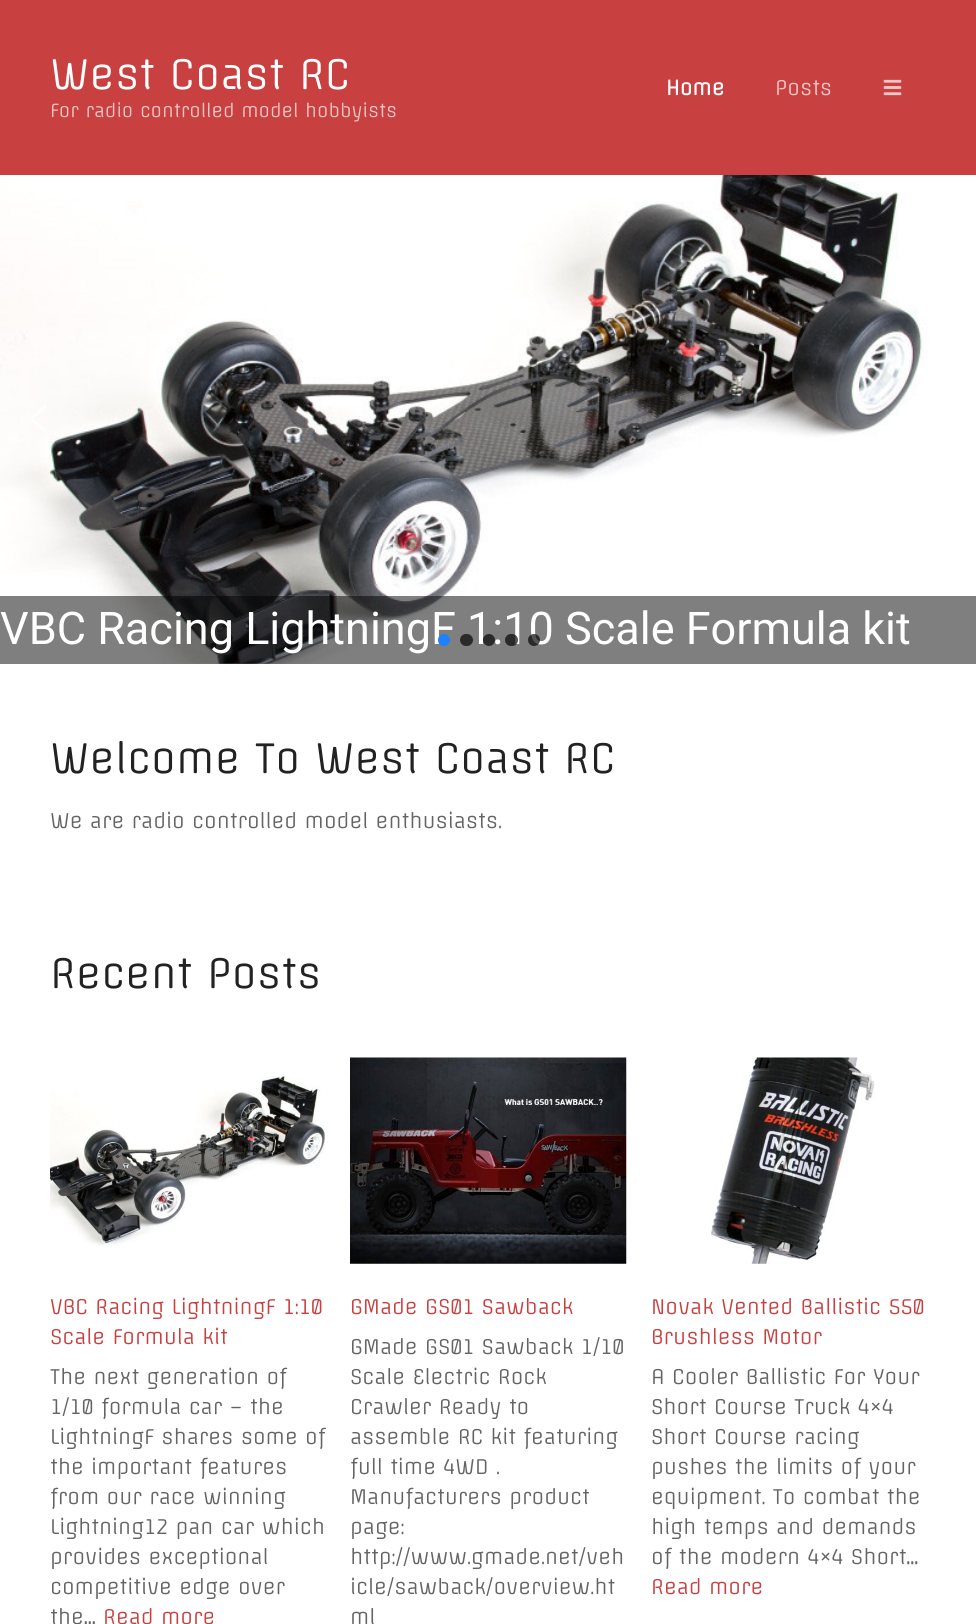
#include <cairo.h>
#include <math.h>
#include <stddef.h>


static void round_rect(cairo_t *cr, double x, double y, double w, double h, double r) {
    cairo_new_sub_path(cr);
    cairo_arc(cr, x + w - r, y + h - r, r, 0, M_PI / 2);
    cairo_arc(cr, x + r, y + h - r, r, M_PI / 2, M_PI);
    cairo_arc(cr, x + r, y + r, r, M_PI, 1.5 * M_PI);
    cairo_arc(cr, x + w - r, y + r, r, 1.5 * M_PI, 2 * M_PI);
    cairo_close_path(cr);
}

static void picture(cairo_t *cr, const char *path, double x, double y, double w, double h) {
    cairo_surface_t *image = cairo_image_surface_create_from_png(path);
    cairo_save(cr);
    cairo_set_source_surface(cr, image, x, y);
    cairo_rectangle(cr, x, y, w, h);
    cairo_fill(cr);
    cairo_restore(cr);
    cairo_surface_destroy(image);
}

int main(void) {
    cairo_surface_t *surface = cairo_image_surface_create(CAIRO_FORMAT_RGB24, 976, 1624);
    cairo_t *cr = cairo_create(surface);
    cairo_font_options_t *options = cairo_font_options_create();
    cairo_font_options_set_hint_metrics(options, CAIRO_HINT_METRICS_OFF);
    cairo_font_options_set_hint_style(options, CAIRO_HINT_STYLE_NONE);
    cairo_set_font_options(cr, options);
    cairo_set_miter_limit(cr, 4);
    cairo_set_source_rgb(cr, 1, 1, 1);
    cairo_paint(cr);
    cairo_set_source_rgb(cr, 0.788, 0.251, 0.251);
    cairo_rectangle(cr, 0, 0, 976, 175);
    cairo_fill(cr);
    cairo_select_font_face(cr, "Offside", CAIRO_FONT_SLANT_NORMAL, CAIRO_FONT_WEIGHT_NORMAL);
    cairo_set_font_size(cr, 40);
    cairo_set_source_rgb(cr, 1, 1, 1);
    cairo_move_to(cr, 50, 89);
    cairo_show_text(cr, "West Coast RC");
    cairo_set_font_size(cr, 18);
    cairo_set_source_rgb(cr, 0.937, 0.776, 0.776);
    cairo_move_to(cr, 50, 117);
    cairo_show_text(cr, "For radio controlled model hobbyists");
    cairo_select_font_face(cr, "Offside", CAIRO_FONT_SLANT_NORMAL, CAIRO_FONT_WEIGHT_BOLD);
    cairo_set_font_size(cr, 20);
    cairo_set_source_rgb(cr, 1, 1, 1);
    cairo_move_to(cr, 666, 95);
    cairo_show_text(cr, "Home");
    cairo_select_font_face(cr, "Offside", CAIRO_FONT_SLANT_NORMAL, CAIRO_FONT_WEIGHT_NORMAL);
    cairo_set_source_rgb(cr, 0.937, 0.776, 0.776);
    cairo_move_to(cr, 775, 95);
    cairo_show_text(cr, "Posts");
    picture(cr, "img1.png", 883, 79, 19, 17);
    picture(cr, "img3.png", 0, 175, 976, 489);
    picture(cr, "img2.png", 30, 404, 17, 29);
    cairo_set_source_rgba(cr, 0, 0, 0, 0.5);
    cairo_rectangle(cr, 0, 596, 976, 68);
    cairo_fill(cr);
    cairo_select_font_face(cr, "Roboto", CAIRO_FONT_SLANT_NORMAL, CAIRO_FONT_WEIGHT_NORMAL);
    cairo_set_font_size(cr, 45);
    cairo_set_source_rgb(cr, 1, 1, 1);
    cairo_move_to(cr, 0, 644);
    cairo_show_text(cr, "VBC Racing LightningF 1:10 Scale Formula kit");
    cairo_set_source_rgb(cr, 0.114, 0.506, 0.976);
    cairo_new_path(cr);
    cairo_arc(cr, 444, 640, 6, 0, 2 * M_PI);
    cairo_fill(cr);
    cairo_set_source_rgb(cr, 0.165, 0.165, 0.165);
    round_rect(cr, 460, 634, 13, 12, 6);
    cairo_fill(cr);
    cairo_set_source_rgba(cr, 0, 0, 0, 0.67);
    cairo_arc(cr, 489, 640, 6, 0, 2 * M_PI);
    cairo_fill(cr);
    round_rect(cr, 505, 634, 13, 12, 6);
    cairo_fill(cr);
    cairo_arc(cr, 534, 640, 6, 0, 2 * M_PI);
    cairo_fill(cr);
    cairo_select_font_face(cr, "Offside", CAIRO_FONT_SLANT_NORMAL, CAIRO_FONT_WEIGHT_NORMAL);
    cairo_set_font_size(cr, 40);
    cairo_set_source_rgb(cr, 0.133, 0.133, 0.133);
    cairo_move_to(cr, 50, 773);
    cairo_show_text(cr, "Welcome To West Coast RC");
    cairo_set_font_size(cr, 20);
    cairo_set_source_rgb(cr, 0.392, 0.392, 0.392);
    cairo_move_to(cr, 50, 828);
    cairo_show_text(cr, "We are radio controlled model enthusiasts.");
    cairo_set_font_size(cr, 40);
    cairo_set_source_rgb(cr, 0.133, 0.133, 0.133);
    cairo_move_to(cr, 50, 988);
    cairo_show_text(cr, "Recent Posts");
    picture(cr, "img4.png", 50, 1076, 275, 170);
    cairo_set_font_size(cr, 20);
    cairo_set_source_rgb(cr, 0.788, 0.251, 0.251);
    cairo_move_to(cr, 50, 1314);
    cairo_show_text(cr, "VBC Racing LightningF 1:10");
    cairo_move_to(cr, 50, 1344);
    cairo_show_text(cr, "Scale Formula kit");
    cairo_set_source_rgb(cr, 0.392, 0.392, 0.392);
    cairo_move_to(cr, 50, 1384);
    cairo_show_text(cr, "The next generation of");
    cairo_move_to(cr, 50, 1414);
    cairo_show_text(cr, "1/10 formula car – the");
    cairo_move_to(cr, 50, 1444);
    cairo_show_text(cr, "LightningF shares some of");
    cairo_move_to(cr, 50, 1474);
    cairo_show_text(cr, "the important features");
    cairo_move_to(cr, 50, 1504);
    cairo_show_text(cr, "from our race winning");
    cairo_move_to(cr, 50, 1534);
    cairo_show_text(cr, "Lightning12 pan car which");
    cairo_move_to(cr, 50, 1564);
    cairo_show_text(cr, "provides exceptional");
    cairo_move_to(cr, 50, 1594);
    cairo_show_text(cr, "competitive edge over");
    cairo_move_to(cr, 50, 1624);
    cairo_show_text(cr, "the…");
    cairo_set_source_rgb(cr, 0.788, 0.251, 0.251);
    cairo_move_to(cr, 103, 1624);
    cairo_show_text(cr, "Read more");
    picture(cr, "img5.png", 350, 1057, 277, 207);
    cairo_move_to(cr, 350, 1314);
    cairo_show_text(cr, "GMade GS01 Sawback");
    cairo_set_source_rgb(cr, 0.392, 0.392, 0.392);
    cairo_move_to(cr, 350, 1354);
    cairo_show_text(cr, "GMade GS01 Sawback 1/10");
    cairo_move_to(cr, 350, 1384);
    cairo_show_text(cr, "Scale Electric Rock");
    cairo_move_to(cr, 350, 1414);
    cairo_show_text(cr, "Crawler Ready to");
    cairo_move_to(cr, 350, 1444);
    cairo_show_text(cr, "assemble RC kit featuring");
    cairo_move_to(cr, 350, 1474);
    cairo_show_text(cr, "full time 4WD .");
    cairo_move_to(cr, 350, 1504);
    cairo_show_text(cr, "Manufacturers product");
    cairo_move_to(cr, 350, 1534);
    cairo_show_text(cr, "page:");
    cairo_move_to(cr, 350, 1564);
    cairo_show_text(cr, "http://www.gmade.net/veh");
    cairo_move_to(cr, 350, 1594);
    cairo_show_text(cr, "icle/sawback/overview.ht");
    cairo_move_to(cr, 350, 1624);
    cairo_show_text(cr, "ml");
    picture(cr, "img6.png", 711, 1057, 164, 207);
    cairo_set_source_rgb(cr, 0.788, 0.251, 0.251);
    cairo_move_to(cr, 651, 1314);
    cairo_show_text(cr, "Novak Vented Ballistic 550");
    cairo_move_to(cr, 651, 1344);
    cairo_show_text(cr, "Brushless Motor");
    cairo_set_source_rgb(cr, 0.392, 0.392, 0.392);
    cairo_move_to(cr, 651, 1384);
    cairo_show_text(cr, "A Cooler Ballistic For Your");
    cairo_move_to(cr, 651, 1414);
    cairo_show_text(cr, "Short Course Truck 4×4");
    cairo_move_to(cr, 651, 1444);
    cairo_show_text(cr, "Short Course racing");
    cairo_move_to(cr, 651, 1474);
    cairo_show_text(cr, "pushes the limits of your");
    cairo_move_to(cr, 651, 1504);
    cairo_show_text(cr, "equipment. To combat the");
    cairo_move_to(cr, 651, 1534);
    cairo_show_text(cr, "high temps and demands");
    cairo_move_to(cr, 651, 1564);
    cairo_show_text(cr, "of the modern 4×4 Short…");
    cairo_set_source_rgb(cr, 0.788, 0.251, 0.251);
    cairo_move_to(cr, 651, 1594);
    cairo_show_text(cr, "Read more");
    cairo_surface_write_to_png(surface, "page.png");
    cairo_font_options_destroy(options);
    cairo_destroy(cr);
    cairo_surface_destroy(surface);
    return 0;
}
